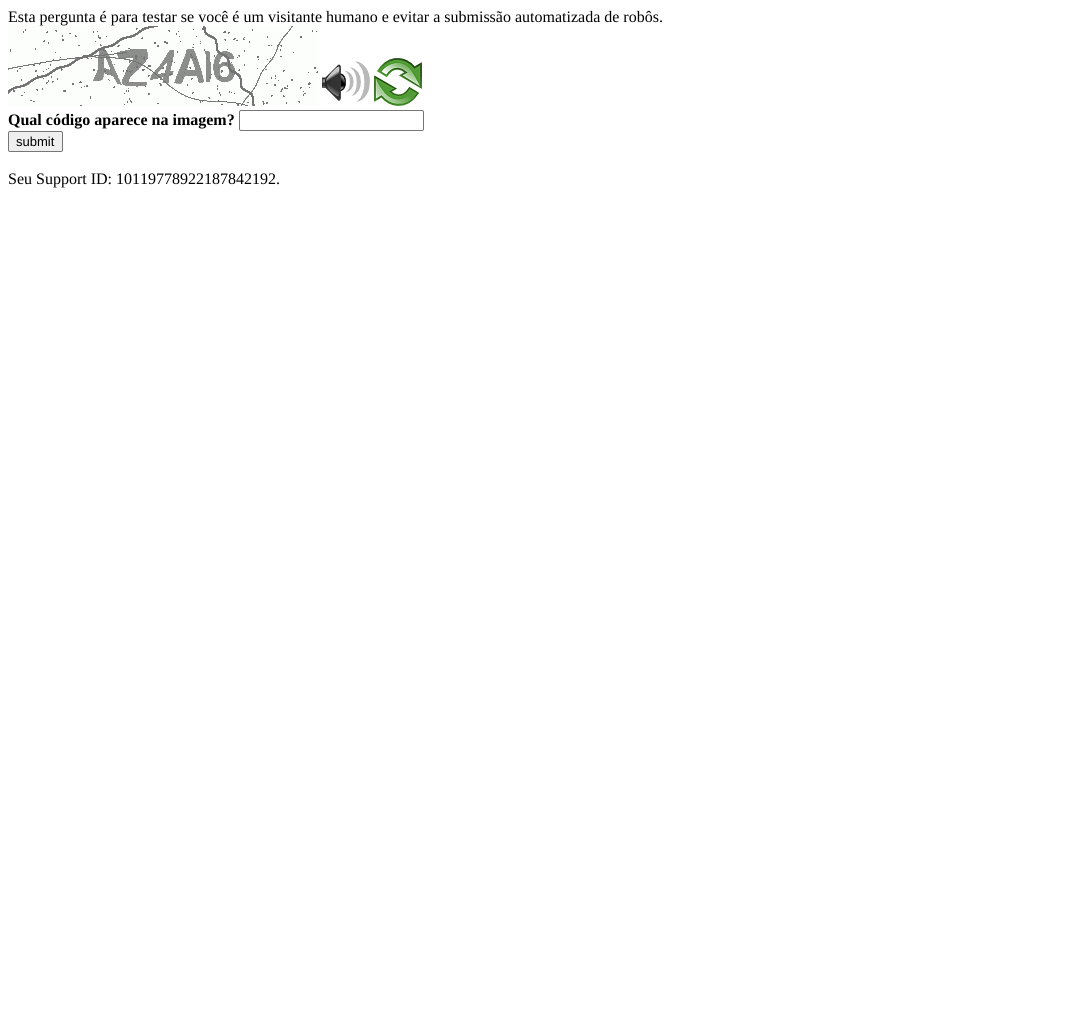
#include <cairo.h>
#include <math.h>
#include <stddef.h>


static void round_rect(cairo_t *cr, double x, double y, double w, double h, double r) {
    cairo_new_sub_path(cr);
    cairo_arc(cr, x + w - r, y + h - r, r, 0, M_PI / 2);
    cairo_arc(cr, x + r, y + h - r, r, M_PI / 2, M_PI);
    cairo_arc(cr, x + r, y + r, r, M_PI, 1.5 * M_PI);
    cairo_arc(cr, x + w - r, y + r, r, 1.5 * M_PI, 2 * M_PI);
    cairo_close_path(cr);
}

static void picture(cairo_t *cr, const char *path, double x, double y, double w, double h) {
    cairo_surface_t *image = cairo_image_surface_create_from_png(path);
    cairo_save(cr);
    cairo_set_source_surface(cr, image, x, y);
    cairo_rectangle(cr, x, y, w, h);
    cairo_fill(cr);
    cairo_restore(cr);
    cairo_surface_destroy(image);
}

int main(void) {
    cairo_surface_t *surface = cairo_image_surface_create(CAIRO_FORMAT_RGB24, 1086, 1026);
    cairo_t *cr = cairo_create(surface);
    cairo_font_options_t *options = cairo_font_options_create();
    cairo_font_options_set_hint_metrics(options, CAIRO_HINT_METRICS_OFF);
    cairo_font_options_set_hint_style(options, CAIRO_HINT_STYLE_NONE);
    cairo_set_font_options(cr, options);
    cairo_set_miter_limit(cr, 4);
    cairo_set_source_rgb(cr, 1, 1, 1);
    cairo_paint(cr);
    cairo_select_font_face(cr, "Liberation Serif", CAIRO_FONT_SLANT_NORMAL, CAIRO_FONT_WEIGHT_NORMAL);
    cairo_set_font_size(cr, 16);
    cairo_set_source_rgb(cr, 0, 0, 0);
    cairo_move_to(cr, 8, 22);
    cairo_show_text(cr, "Esta pergunta é para testar se você é um visitante humano e evitar a submissão automatizada de robôs.");
    picture(cr, "img1.png", 8, 26, 310, 80);
    picture(cr, "img2.png", 322, 61, 48, 41);
    picture(cr, "img3.png", 374, 58, 48, 48);
    cairo_select_font_face(cr, "Liberation Serif", CAIRO_FONT_SLANT_NORMAL, CAIRO_FONT_WEIGHT_BOLD);
    cairo_move_to(cr, 8, 125);
    cairo_show_text(cr, "Qual código aparece na imagem?");
    round_rect(cr, 239.5, 110.5, 184, 20, 1.5);
    cairo_set_source_rgb(cr, 0.463, 0.463, 0.463);
    cairo_set_line_width(cr, 1);
    cairo_stroke(cr);
    cairo_set_source_rgb(cr, 0.937, 0.937, 0.937);
    round_rect(cr, 8.5, 131.5, 54, 20, 1.5);
    cairo_fill_preserve(cr);
    cairo_set_source_rgb(cr, 0.463, 0.463, 0.463);
    cairo_stroke(cr);
    cairo_select_font_face(cr, "Liberation Sans", CAIRO_FONT_SLANT_NORMAL, CAIRO_FONT_WEIGHT_NORMAL);
    cairo_set_font_size(cr, 13);
    cairo_set_source_rgb(cr, 0, 0, 0);
    cairo_move_to(cr, 16, 146);
    cairo_show_text(cr, "submit");
    cairo_select_font_face(cr, "Liberation Serif", CAIRO_FONT_SLANT_NORMAL, CAIRO_FONT_WEIGHT_NORMAL);
    cairo_set_font_size(cr, 16);
    cairo_move_to(cr, 8, 184);
    cairo_show_text(cr, "Seu Support ID: 10119778922187842192.");
    cairo_surface_write_to_png(surface, "page.png");
    cairo_font_options_destroy(options);
    cairo_destroy(cr);
    cairo_surface_destroy(surface);
    return 0;
}
